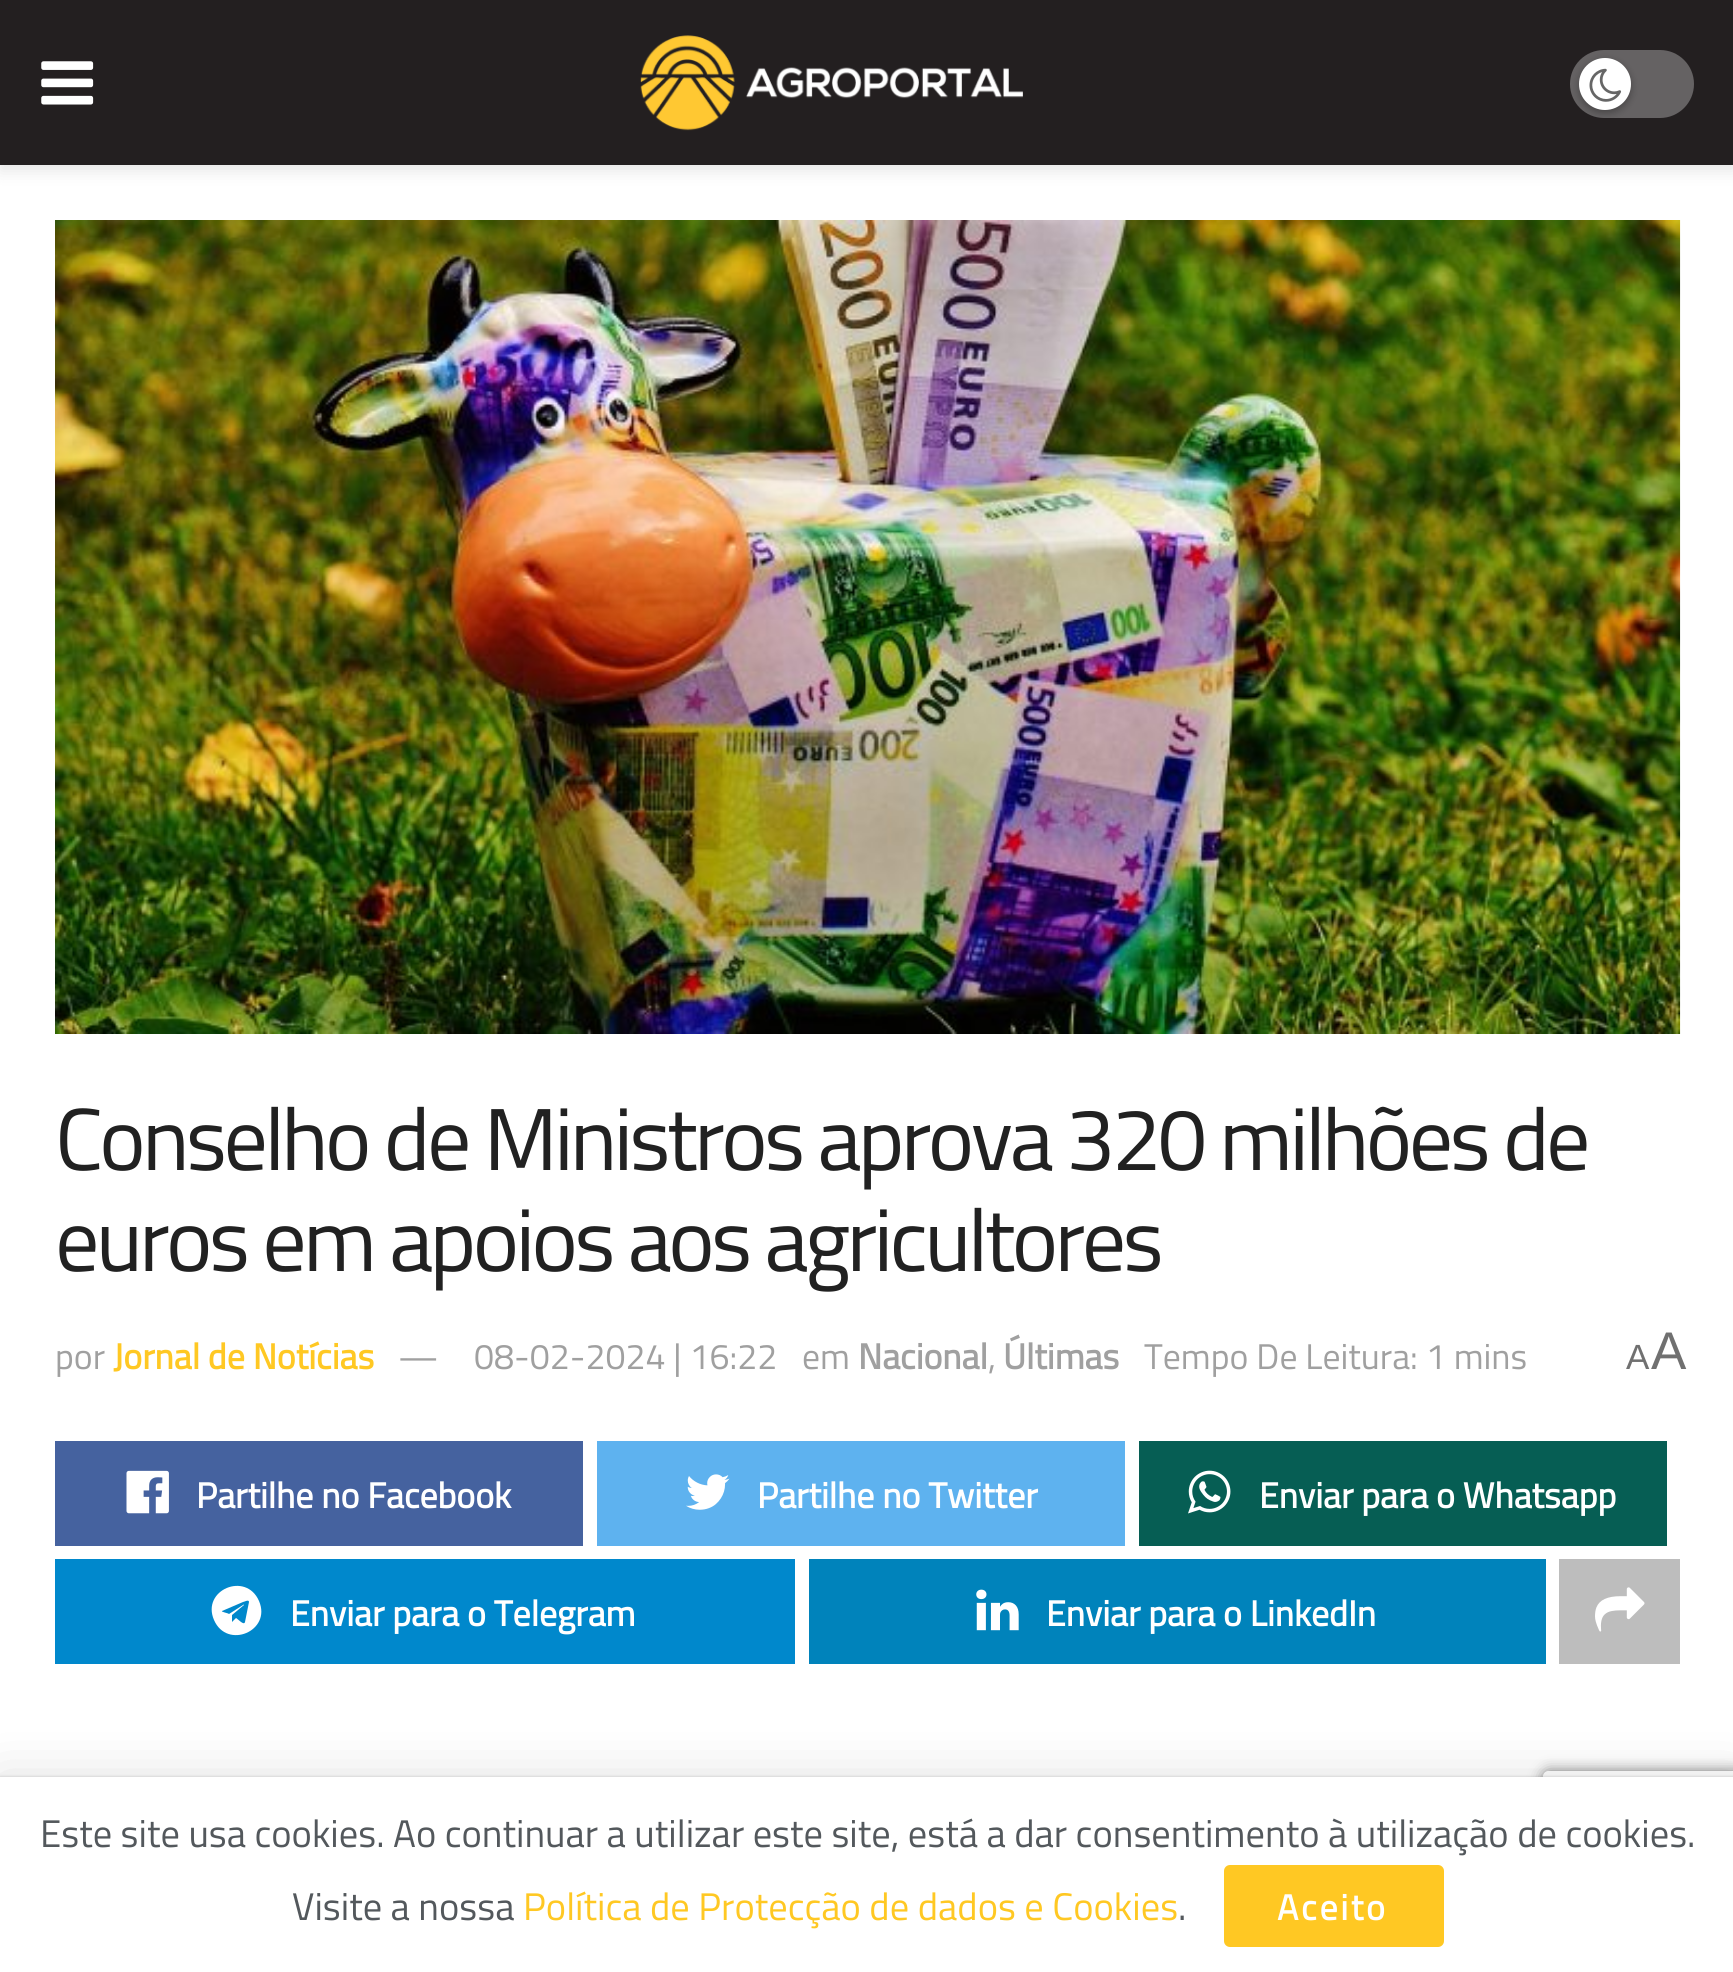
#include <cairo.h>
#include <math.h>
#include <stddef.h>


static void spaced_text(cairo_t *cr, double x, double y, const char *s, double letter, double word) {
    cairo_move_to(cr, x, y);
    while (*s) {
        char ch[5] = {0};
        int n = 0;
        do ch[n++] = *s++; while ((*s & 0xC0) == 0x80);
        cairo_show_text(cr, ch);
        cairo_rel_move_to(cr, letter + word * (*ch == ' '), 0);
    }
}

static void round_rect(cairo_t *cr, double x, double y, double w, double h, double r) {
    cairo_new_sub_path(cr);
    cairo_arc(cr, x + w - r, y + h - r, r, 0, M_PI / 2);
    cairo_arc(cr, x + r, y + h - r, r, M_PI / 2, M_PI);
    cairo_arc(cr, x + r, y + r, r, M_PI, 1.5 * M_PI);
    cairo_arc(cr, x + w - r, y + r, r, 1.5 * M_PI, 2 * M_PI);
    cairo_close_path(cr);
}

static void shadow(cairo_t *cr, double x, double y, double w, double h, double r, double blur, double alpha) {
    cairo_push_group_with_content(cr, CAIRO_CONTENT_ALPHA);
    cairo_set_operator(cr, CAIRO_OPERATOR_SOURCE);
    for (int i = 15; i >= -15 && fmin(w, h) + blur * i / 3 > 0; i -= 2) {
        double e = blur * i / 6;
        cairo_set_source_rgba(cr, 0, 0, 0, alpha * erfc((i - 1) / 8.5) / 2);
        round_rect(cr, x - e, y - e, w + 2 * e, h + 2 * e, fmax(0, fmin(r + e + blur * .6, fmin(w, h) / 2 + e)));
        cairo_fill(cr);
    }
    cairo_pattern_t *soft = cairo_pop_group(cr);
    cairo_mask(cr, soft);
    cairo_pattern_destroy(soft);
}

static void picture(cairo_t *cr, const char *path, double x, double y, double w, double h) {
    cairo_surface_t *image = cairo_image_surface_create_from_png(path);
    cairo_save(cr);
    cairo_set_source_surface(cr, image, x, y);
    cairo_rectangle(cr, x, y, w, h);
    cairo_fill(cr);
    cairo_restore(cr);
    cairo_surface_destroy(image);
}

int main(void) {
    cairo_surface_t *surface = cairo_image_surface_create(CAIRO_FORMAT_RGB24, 1733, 1972);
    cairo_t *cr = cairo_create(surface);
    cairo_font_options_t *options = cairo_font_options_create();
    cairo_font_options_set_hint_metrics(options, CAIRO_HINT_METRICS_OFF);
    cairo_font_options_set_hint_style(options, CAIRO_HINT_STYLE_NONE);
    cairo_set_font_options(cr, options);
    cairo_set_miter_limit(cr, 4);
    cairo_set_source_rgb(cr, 1, 1, 1);
    cairo_paint(cr);
    cairo_set_source_rgb(cr, 0, 0, 0);
    shadow(cr, 0, 6, 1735, 165, 0, 8, 0.1);
    cairo_set_source_rgb(cr, 0.137, 0.122, 0.125);
    cairo_rectangle(cr, 0, 0, 1733, 165);
    cairo_fill(cr);
    picture(cr, "img1.png", 41, 61, 53, 44);
    picture(cr, "img2.png", 640, 35, 383, 96);
    cairo_set_source_rgb(cr, 0.396, 0.384, 0.388);
    round_rect(cr, 1570, 50, 124, 68, 34);
    cairo_fill(cr);
    cairo_set_source_rgb(cr, 0, 0, 0);
    shadow(cr, 1579, 61, 52, 52, 26, 4, 0.3);
    cairo_set_source_rgb(cr, 1, 1, 1);
    cairo_arc(cr, 1605, 84, 26, 0, 2 * M_PI);
    cairo_fill(cr);
    picture(cr, "img3.png", 1589, 68, 33, 34);
    picture(cr, "img4.png", 55, 220, 1626, 814);
    cairo_select_font_face(cr, "Titillium Web", CAIRO_FONT_SLANT_NORMAL, CAIRO_FONT_WEIGHT_NORMAL);
    cairo_set_font_size(cr, 88);
    cairo_set_source_rgb(cr, 0.129, 0.129, 0.129);
    spaced_text(cr, 55, 1170, "Conselho de Ministros aprova 320 milhões de", -3.5, 0);
    spaced_text(cr, 55, 1271, "euros em apoios aos agricultores", -3.5, 0);
    cairo_set_font_size(cr, 35.75);
    cairo_set_source_rgb(cr, 0.627, 0.627, 0.627);
    cairo_move_to(cr, 55, 1369);
    cairo_show_text(cr, "por");
    cairo_select_font_face(cr, "Titillium Web", CAIRO_FONT_SLANT_NORMAL, CAIRO_FONT_WEIGHT_BOLD);
    cairo_set_source_rgb(cr, 1, 0.784, 0.137);
    cairo_move_to(cr, 113, 1369);
    cairo_show_text(cr, "Jornal de Notícias");
    cairo_select_font_face(cr, "Titillium Web", CAIRO_FONT_SLANT_NORMAL, CAIRO_FONT_WEIGHT_NORMAL);
    cairo_set_source_rgb(cr, 0.627, 0.627, 0.627);
    cairo_move_to(cr, 398, 1369);
    cairo_show_text(cr, "—");
    cairo_move_to(cr, 474, 1369);
    cairo_show_text(cr, "08-02-2024 | 16:22");
    cairo_move_to(cr, 802, 1369);
    cairo_show_text(cr, "em");
    cairo_select_font_face(cr, "Titillium Web", CAIRO_FONT_SLANT_NORMAL, CAIRO_FONT_WEIGHT_BOLD);
    cairo_move_to(cr, 858, 1369);
    cairo_show_text(cr, "Nacional");
    cairo_select_font_face(cr, "Titillium Web", CAIRO_FONT_SLANT_NORMAL, CAIRO_FONT_WEIGHT_NORMAL);
    cairo_move_to(cr, 988, 1369);
    cairo_show_text(cr, ",");
    cairo_select_font_face(cr, "Titillium Web", CAIRO_FONT_SLANT_NORMAL, CAIRO_FONT_WEIGHT_BOLD);
    cairo_move_to(cr, 1003, 1369);
    cairo_show_text(cr, "Últimas");
    cairo_select_font_face(cr, "Titillium Web", CAIRO_FONT_SLANT_NORMAL, CAIRO_FONT_WEIGHT_NORMAL);
    cairo_move_to(cr, 1144, 1369);
    cairo_show_text(cr, "Tempo De Leitura: 1 mins");
    cairo_select_font_face(cr, "Liberation Sans", CAIRO_FONT_SLANT_NORMAL, CAIRO_FONT_WEIGHT_NORMAL);
    cairo_set_font_size(cr, 35);
    cairo_set_source_rgb(cr, 0.439, 0.439, 0.439);
    cairo_move_to(cr, 1626, 1369);
    cairo_show_text(cr, "A");
    cairo_set_font_size(cr, 53);
    cairo_move_to(cr, 1651, 1369);
    cairo_show_text(cr, "A");
    cairo_set_source_rgb(cr, 0.271, 0.384, 0.624);
    cairo_rectangle(cr, 55, 1441, 528, 105);
    cairo_fill(cr);
    picture(cr, "img5.png", 126, 1470, 43, 44);
    cairo_select_font_face(cr, "Titillium Web", CAIRO_FONT_SLANT_NORMAL, CAIRO_FONT_WEIGHT_BOLD);
    cairo_set_font_size(cr, 35.75);
    cairo_set_source_rgb(cr, 1, 1, 1);
    cairo_move_to(cr, 196, 1508);
    cairo_show_text(cr, "Partilhe no Facebook");
    cairo_set_source_rgb(cr, 0.369, 0.698, 0.937);
    cairo_rectangle(cr, 597, 1441, 528, 105);
    cairo_fill(cr);
    picture(cr, "img6.png", 686, 1474, 44, 36);
    cairo_set_source_rgb(cr, 1, 1, 1);
    cairo_move_to(cr, 757, 1508);
    cairo_show_text(cr, "Partilhe no Twitter");
    cairo_set_source_rgb(cr, 0.027, 0.369, 0.329);
    cairo_rectangle(cr, 1139, 1441, 528, 105);
    cairo_fill(cr);
    picture(cr, "img7.png", 1188, 1470, 43, 44);
    cairo_set_source_rgb(cr, 1, 1, 1);
    cairo_move_to(cr, 1259, 1508);
    cairo_show_text(cr, "Enviar para o Whatsapp");
    cairo_set_source_rgb(cr, 0, 0.533, 0.8);
    cairo_rectangle(cr, 55, 1559, 740, 105);
    cairo_fill(cr);
    cairo_set_source_rgb(cr, 1, 1, 1);
    cairo_new_path(cr);
    cairo_move_to(cr, 245, 1622);
    cairo_line_to(cr, 249, 1602);
    cairo_curve_to(cr, 249, 1599, 244, 1602, 243, 1602);
    cairo_line_to(cr, 222, 1611);
    cairo_curve_to(cr, 221, 1612, 228, 1613, 229, 1614);
    cairo_line_to(cr, 243, 1605);
    cairo_curve_to(cr, 243, 1605, 244, 1604, 244, 1605);
    cairo_line_to(cr, 232, 1615);
    cairo_line_to(cr, 232, 1622);
    cairo_line_to(cr, 236, 1618);
    cairo_curve_to(cr, 238, 1619, 244, 1626, 245, 1622);
    cairo_close_path(cr);
    cairo_move_to(cr, 259, 1601);
    cairo_curve_to(cr, 272, 1631, 227, 1650, 214, 1620);
    cairo_curve_to(cr, 201, 1590, 246, 1571, 259, 1601);
    cairo_close_path(cr);
    cairo_fill(cr);
    cairo_move_to(cr, 290, 1626);
    cairo_show_text(cr, "Enviar para o Telegram");
    cairo_set_source_rgb(cr, 0, 0.514, 0.733);
    cairo_rectangle(cr, 809, 1559, 737, 105);
    cairo_fill(cr);
    picture(cr, "img8.png", 976, 1589, 43, 42);
    cairo_set_source_rgb(cr, 1, 1, 1);
    cairo_move_to(cr, 1046, 1626);
    cairo_show_text(cr, "Enviar para o LinkedIn");
    cairo_set_source_rgb(cr, 0.741, 0.741, 0.741);
    cairo_rectangle(cr, 1559, 1559, 121, 105);
    cairo_fill(cr);
    picture(cr, "img9.png", 1595, 1587, 50, 45);
    cairo_save(cr);
    cairo_set_fill_rule(cr, CAIRO_FILL_RULE_EVEN_ODD);
    cairo_new_path(cr);
    cairo_move_to(cr, 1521, 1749);
    cairo_line_to(cr, 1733, 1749);
    cairo_line_to(cr, 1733, 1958);
    cairo_line_to(cr, 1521, 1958);
    cairo_close_path(cr);
    cairo_move_to(cr, 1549, 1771);
    cairo_line_to(cr, 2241, 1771);
    cairo_curve_to(cr, 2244.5, 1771, 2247, 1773.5, 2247, 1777);
    cairo_line_to(cr, 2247, 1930);
    cairo_curve_to(cr, 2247, 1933.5, 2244.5, 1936, 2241, 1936);
    cairo_line_to(cr, 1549, 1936);
    cairo_curve_to(cr, 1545.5, 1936, 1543, 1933.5, 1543, 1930);
    cairo_line_to(cr, 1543, 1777);
    cairo_curve_to(cr, 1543, 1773.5, 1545.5, 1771, 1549, 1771);
    cairo_close_path(cr);
    cairo_clip(cr);
    cairo_set_source_rgb(cr, 0.502, 0.502, 0.502);
    shadow(cr, 1543, 1771, 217, 165, 6, 7, 1);
    cairo_restore(cr);
    cairo_set_source_rgb(cr, 0, 0, 0);
    shadow(cr, 0, 1782, 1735, 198, 0, 27.5, 0.15);
    shadow(cr, 0, 1777, 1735, 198, 0, 1.5, 0.2);
    cairo_set_source_rgb(cr, 1, 1, 1);
    cairo_rectangle(cr, 0, 1777, 1733, 195);
    cairo_fill(cr);
    cairo_select_font_face(cr, "Titillium Web", CAIRO_FONT_SLANT_NORMAL, CAIRO_FONT_WEIGHT_NORMAL);
    cairo_set_font_size(cr, 38.5);
    cairo_set_source_rgb(cr, 0.325, 0.345, 0.361);
    cairo_move_to(cr, 40, 1847);
    cairo_show_text(cr, "Este site usa cookies. Ao continuar a utilizar este site, está a dar consentimento à utilização de cookies.");
    cairo_move_to(cr, 292, 1920);
    cairo_show_text(cr, "Visite a nossa");
    cairo_set_source_rgb(cr, 1, 0.784, 0.137);
    cairo_move_to(cr, 523, 1920);
    cairo_show_text(cr, "Política de Protecção de dados e Cookies");
    cairo_set_source_rgb(cr, 0.325, 0.345, 0.361);
    cairo_move_to(cr, 1178, 1920);
    cairo_show_text(cr, ".");
    cairo_set_source_rgb(cr, 1, 0.784, 0.137);
    round_rect(cr, 1224, 1865, 220, 82, 6);
    cairo_fill(cr);
    cairo_select_font_face(cr, "Titillium Web", CAIRO_FONT_SLANT_NORMAL, CAIRO_FONT_WEIGHT_BOLD);
    cairo_set_font_size(cr, 35.75);
    cairo_set_source_rgb(cr, 1, 1, 1);
    spaced_text(cr, 1277, 1920, "Aceito", 2.75, 0);
    cairo_surface_write_to_png(surface, "page.png");
    cairo_font_options_destroy(options);
    cairo_destroy(cr);
    cairo_surface_destroy(surface);
    return 0;
}
